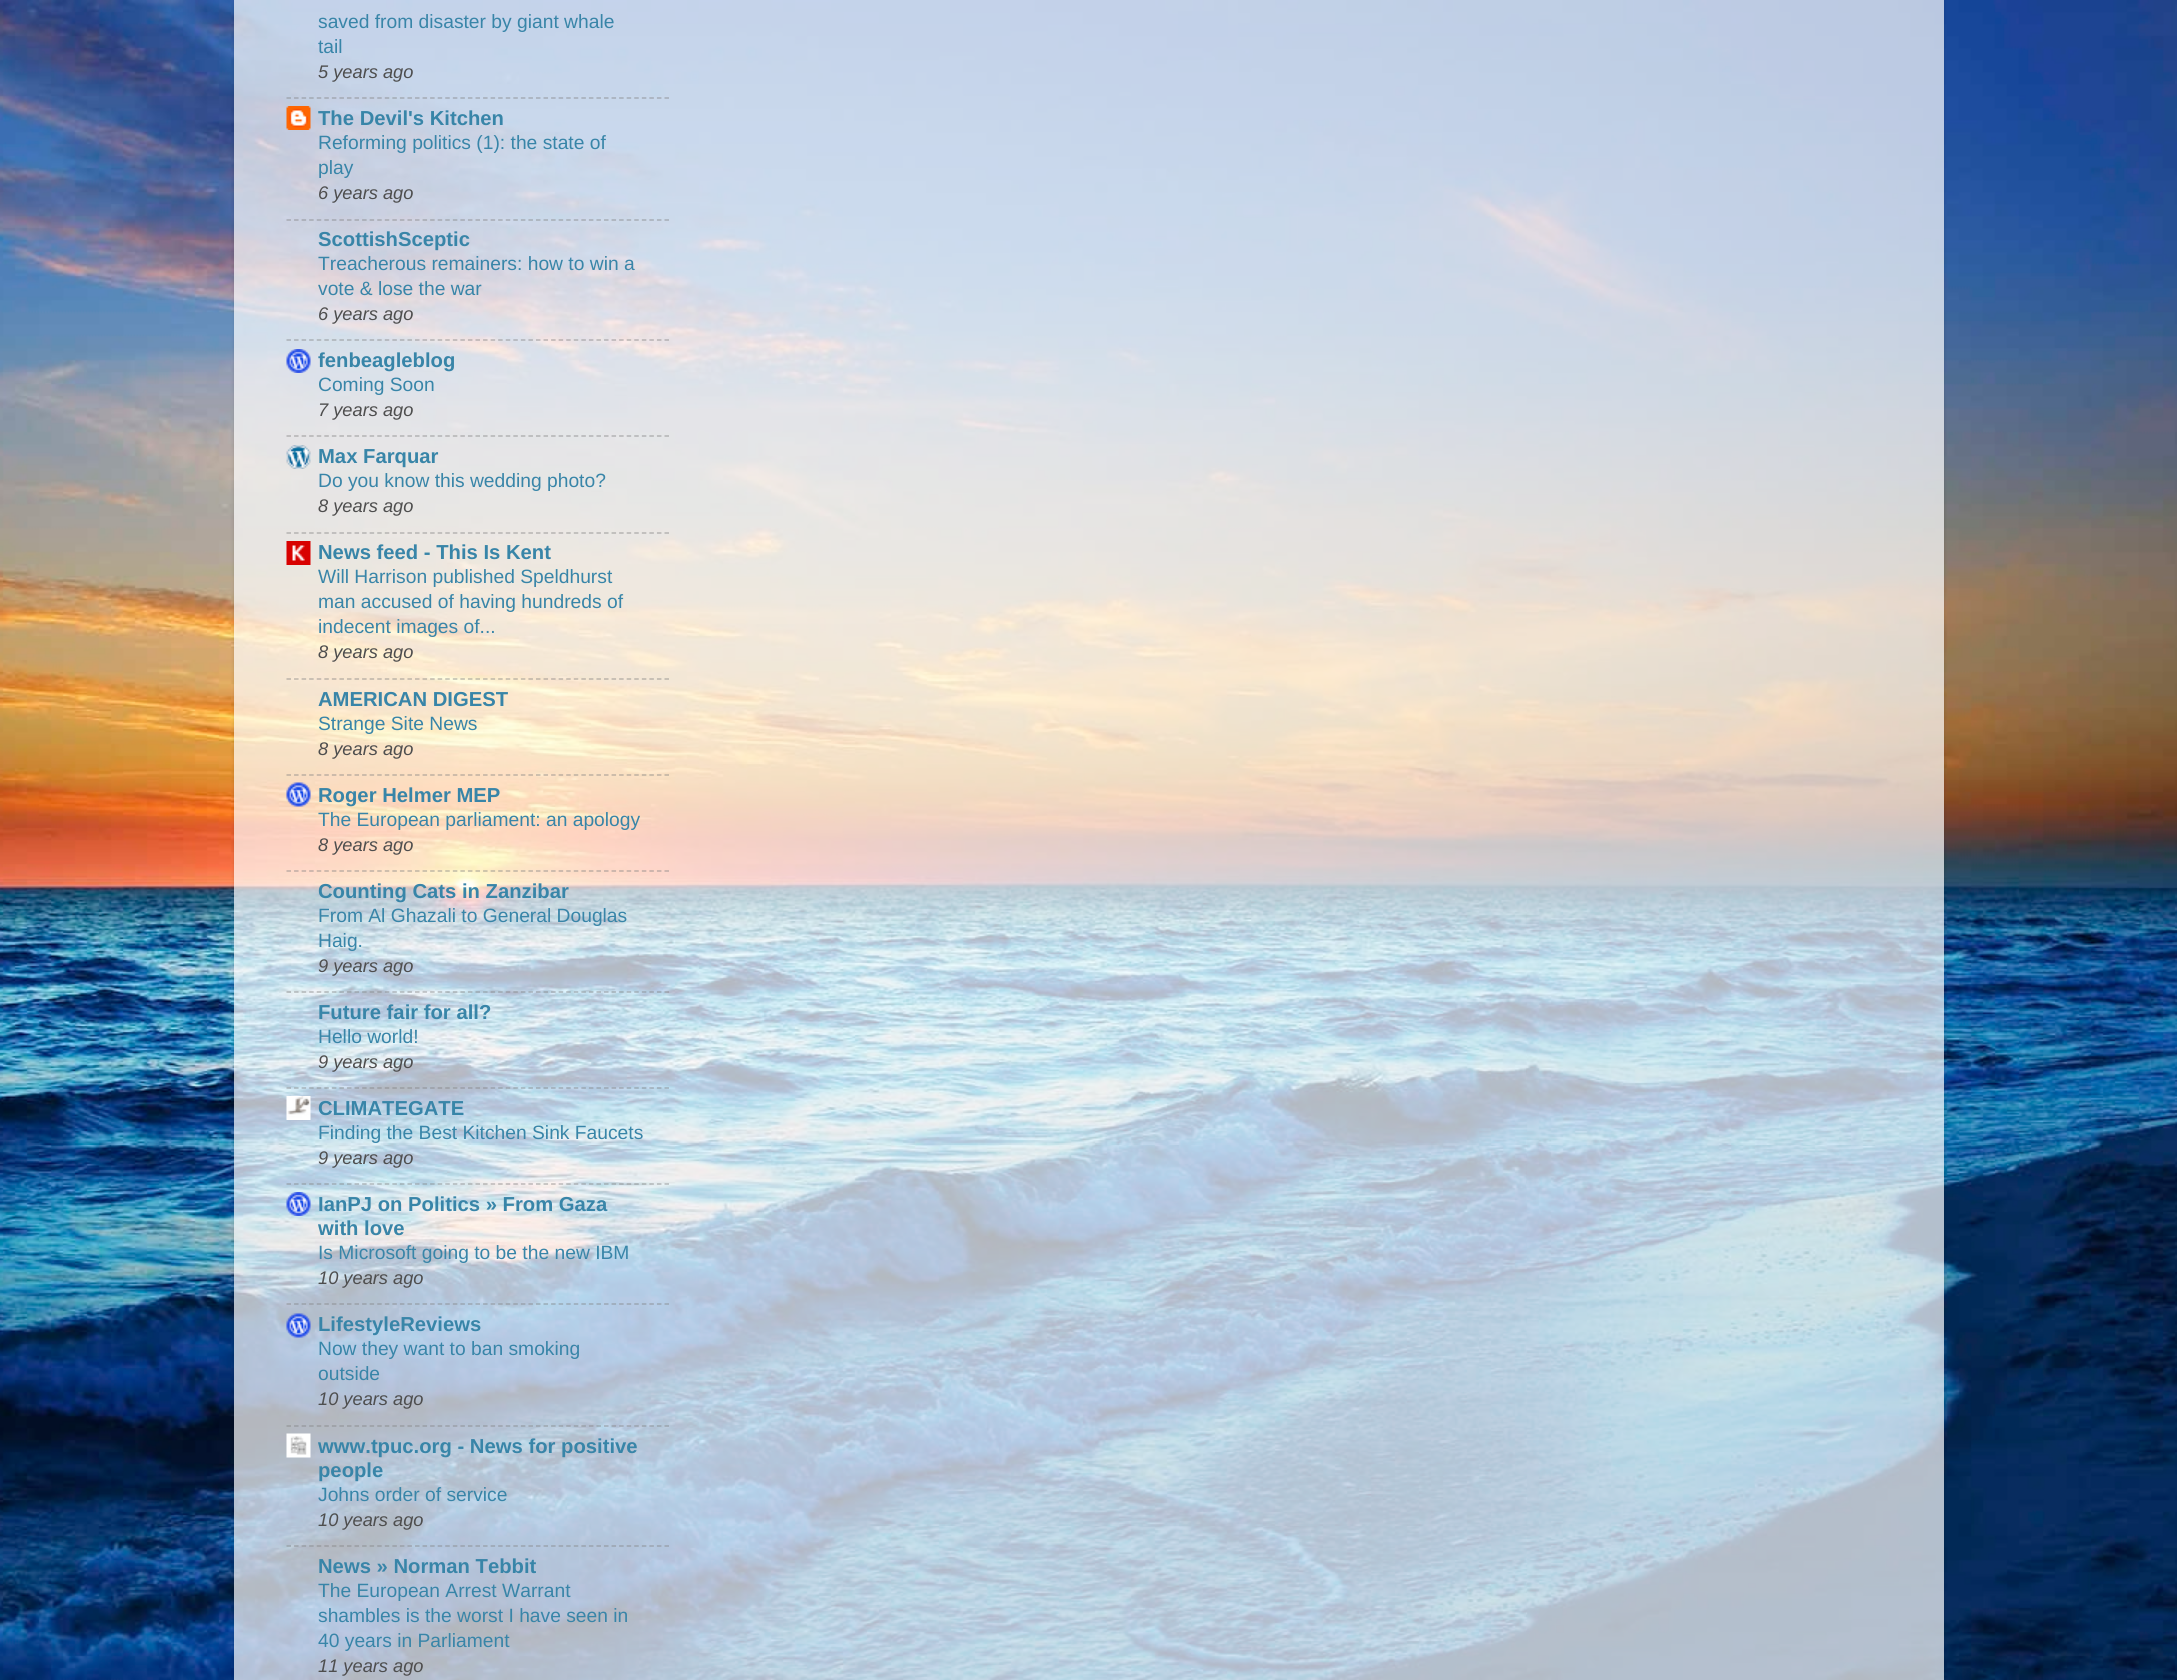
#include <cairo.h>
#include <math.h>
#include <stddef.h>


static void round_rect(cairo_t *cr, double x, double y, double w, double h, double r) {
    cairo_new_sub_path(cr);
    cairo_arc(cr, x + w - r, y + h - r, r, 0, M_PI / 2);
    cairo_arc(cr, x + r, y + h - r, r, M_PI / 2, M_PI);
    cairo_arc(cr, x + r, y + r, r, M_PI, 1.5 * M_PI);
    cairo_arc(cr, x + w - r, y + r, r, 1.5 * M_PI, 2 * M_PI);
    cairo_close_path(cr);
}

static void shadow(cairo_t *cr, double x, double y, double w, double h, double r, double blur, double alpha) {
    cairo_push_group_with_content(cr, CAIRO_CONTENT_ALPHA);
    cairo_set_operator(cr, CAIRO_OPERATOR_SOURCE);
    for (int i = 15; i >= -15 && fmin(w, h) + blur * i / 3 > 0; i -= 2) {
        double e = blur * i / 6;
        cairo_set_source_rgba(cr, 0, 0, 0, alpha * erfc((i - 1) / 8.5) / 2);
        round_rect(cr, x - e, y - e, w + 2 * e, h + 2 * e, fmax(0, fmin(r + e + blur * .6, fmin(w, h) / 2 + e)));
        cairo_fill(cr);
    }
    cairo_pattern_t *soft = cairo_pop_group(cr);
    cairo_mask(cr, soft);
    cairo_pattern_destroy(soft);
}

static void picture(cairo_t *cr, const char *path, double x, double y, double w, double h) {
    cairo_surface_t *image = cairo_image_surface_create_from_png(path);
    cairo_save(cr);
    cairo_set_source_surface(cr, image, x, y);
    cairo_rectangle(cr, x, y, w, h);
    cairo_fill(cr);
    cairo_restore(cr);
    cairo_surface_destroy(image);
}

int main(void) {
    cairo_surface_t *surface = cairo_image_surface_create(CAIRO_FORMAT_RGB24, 2177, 1680);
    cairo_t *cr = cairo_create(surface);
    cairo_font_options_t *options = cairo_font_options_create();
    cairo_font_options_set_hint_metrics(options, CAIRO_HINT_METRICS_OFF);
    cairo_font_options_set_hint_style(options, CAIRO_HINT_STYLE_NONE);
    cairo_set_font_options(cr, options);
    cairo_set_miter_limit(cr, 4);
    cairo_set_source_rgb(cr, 1, 1, 1);
    cairo_paint(cr);
    picture(cr, "img1.png", 0, 0, 2177, 1680);
    cairo_save(cr);
    cairo_set_fill_rule(cr, CAIRO_FILL_RULE_EVEN_ODD);
    cairo_new_path(cr);
    cairo_move_to(cr, 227, 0);
    cairo_line_to(cr, 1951, 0);
    cairo_line_to(cr, 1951, 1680);
    cairo_line_to(cr, 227, 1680);
    cairo_close_path(cr);
    cairo_move_to(cr, 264, -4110);
    cairo_line_to(cr, 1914, -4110);
    cairo_curve_to(cr, 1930.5, -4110, 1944, -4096.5, 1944, -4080);
    cairo_line_to(cr, 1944, 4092);
    cairo_line_to(cr, 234, 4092);
    cairo_line_to(cr, 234, -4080);
    cairo_curve_to(cr, 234, -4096.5, 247.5, -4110, 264, -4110);
    cairo_close_path(cr);
    cairo_clip(cr);
    cairo_set_source_rgb(cr, 0, 0, 0);
    shadow(cr, 234, -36, 1710, 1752, 30, 2, 0.15);
    cairo_restore(cr);
    cairo_set_source_rgba(cr, 1, 1, 1, 0.7);
    cairo_rectangle(cr, 234, 0, 1710, 1680);
    cairo_fill(cr);
    cairo_select_font_face(cr, "Liberation Sans", CAIRO_FONT_SLANT_NORMAL, CAIRO_FONT_WEIGHT_NORMAL);
    cairo_set_font_size(cr, 19.25);
    cairo_set_source_rgb(cr, 0.22, 0.522, 0.659);
    cairo_move_to(cr, 318, 28);
    cairo_show_text(cr, "saved from disaster by giant whale");
    cairo_move_to(cr, 318, 53);
    cairo_show_text(cr, "tail");
    cairo_select_font_face(cr, "Liberation Sans", CAIRO_FONT_SLANT_ITALIC, CAIRO_FONT_WEIGHT_NORMAL);
    cairo_set_font_size(cr, 18.25);
    cairo_set_source_rgb(cr, 0.306, 0.306, 0.306);
    cairo_move_to(cr, 318, 78);
    cairo_show_text(cr, "5 years ago");
    cairo_new_path(cr);
    cairo_move_to(cr, 286.5, 98);
    cairo_line_to(cr, 669, 98);
    cairo_set_source_rgba(cr, 0.502, 0.502, 0.502, 0.5);
    cairo_set_line_width(cr, 1.5);
    cairo_set_dash(cr, (double[]){4.5, 3.06}, 2, 0);
    cairo_stroke(cr);
    picture(cr, "img2.png", 286, 106, 25, 24);
    cairo_select_font_face(cr, "Liberation Sans", CAIRO_FONT_SLANT_NORMAL, CAIRO_FONT_WEIGHT_BOLD);
    cairo_set_font_size(cr, 20.25);
    cairo_set_source_rgb(cr, 0.22, 0.522, 0.659);
    cairo_move_to(cr, 318, 125);
    cairo_show_text(cr, "The Devil's Kitchen");
    cairo_select_font_face(cr, "Liberation Sans", CAIRO_FONT_SLANT_NORMAL, CAIRO_FONT_WEIGHT_NORMAL);
    cairo_set_font_size(cr, 19.25);
    cairo_move_to(cr, 318, 149);
    cairo_show_text(cr, "Reforming politics (1): the state of");
    cairo_move_to(cr, 318, 174);
    cairo_show_text(cr, "play");
    cairo_select_font_face(cr, "Liberation Sans", CAIRO_FONT_SLANT_ITALIC, CAIRO_FONT_WEIGHT_NORMAL);
    cairo_set_font_size(cr, 18.25);
    cairo_set_source_rgb(cr, 0.306, 0.306, 0.306);
    cairo_move_to(cr, 318, 199);
    cairo_show_text(cr, "6 years ago");
    cairo_new_path(cr);
    cairo_move_to(cr, 286.5, 220);
    cairo_line_to(cr, 669, 220);
    cairo_set_source_rgba(cr, 0.502, 0.502, 0.502, 0.5);
    cairo_stroke(cr);
    cairo_select_font_face(cr, "Liberation Sans", CAIRO_FONT_SLANT_NORMAL, CAIRO_FONT_WEIGHT_BOLD);
    cairo_set_font_size(cr, 20.25);
    cairo_set_source_rgb(cr, 0.22, 0.522, 0.659);
    cairo_move_to(cr, 318, 246);
    cairo_show_text(cr, "ScottishSceptic");
    cairo_select_font_face(cr, "Liberation Sans", CAIRO_FONT_SLANT_NORMAL, CAIRO_FONT_WEIGHT_NORMAL);
    cairo_set_font_size(cr, 19.25);
    cairo_move_to(cr, 318, 270);
    cairo_show_text(cr, "Treacherous remainers: how to win a");
    cairo_move_to(cr, 318, 295);
    cairo_show_text(cr, "vote & lose the war");
    cairo_select_font_face(cr, "Liberation Sans", CAIRO_FONT_SLANT_ITALIC, CAIRO_FONT_WEIGHT_NORMAL);
    cairo_set_font_size(cr, 18.25);
    cairo_set_source_rgb(cr, 0.306, 0.306, 0.306);
    cairo_move_to(cr, 318, 320);
    cairo_show_text(cr, "6 years ago");
    cairo_new_path(cr);
    cairo_move_to(cr, 286.5, 340);
    cairo_line_to(cr, 669, 340);
    cairo_set_source_rgba(cr, 0.502, 0.502, 0.502, 0.5);
    cairo_stroke(cr);
    picture(cr, "img3.png", 286, 349, 25, 24);
    cairo_select_font_face(cr, "Liberation Sans", CAIRO_FONT_SLANT_NORMAL, CAIRO_FONT_WEIGHT_BOLD);
    cairo_set_font_size(cr, 20.25);
    cairo_set_source_rgb(cr, 0.22, 0.522, 0.659);
    cairo_move_to(cr, 318, 367);
    cairo_show_text(cr, "fenbeagleblog");
    cairo_select_font_face(cr, "Liberation Sans", CAIRO_FONT_SLANT_NORMAL, CAIRO_FONT_WEIGHT_NORMAL);
    cairo_set_font_size(cr, 19.25);
    cairo_move_to(cr, 318, 391);
    cairo_show_text(cr, "Coming Soon");
    cairo_select_font_face(cr, "Liberation Sans", CAIRO_FONT_SLANT_ITALIC, CAIRO_FONT_WEIGHT_NORMAL);
    cairo_set_font_size(cr, 18.25);
    cairo_set_source_rgb(cr, 0.306, 0.306, 0.306);
    cairo_move_to(cr, 318, 416);
    cairo_show_text(cr, "7 years ago");
    cairo_new_path(cr);
    cairo_move_to(cr, 286.5, 436);
    cairo_line_to(cr, 669, 436);
    cairo_set_source_rgba(cr, 0.502, 0.502, 0.502, 0.5);
    cairo_stroke(cr);
    picture(cr, "img4.png", 286, 445, 25, 24);
    cairo_select_font_face(cr, "Liberation Sans", CAIRO_FONT_SLANT_NORMAL, CAIRO_FONT_WEIGHT_BOLD);
    cairo_set_font_size(cr, 20.25);
    cairo_set_source_rgb(cr, 0.22, 0.522, 0.659);
    cairo_move_to(cr, 318, 463);
    cairo_show_text(cr, "Max Farquar");
    cairo_select_font_face(cr, "Liberation Sans", CAIRO_FONT_SLANT_NORMAL, CAIRO_FONT_WEIGHT_NORMAL);
    cairo_set_font_size(cr, 19.25);
    cairo_move_to(cr, 318, 487);
    cairo_show_text(cr, "Do you know this wedding photo?");
    cairo_select_font_face(cr, "Liberation Sans", CAIRO_FONT_SLANT_ITALIC, CAIRO_FONT_WEIGHT_NORMAL);
    cairo_set_font_size(cr, 18.25);
    cairo_set_source_rgb(cr, 0.306, 0.306, 0.306);
    cairo_move_to(cr, 318, 512);
    cairo_show_text(cr, "8 years ago");
    cairo_new_path(cr);
    cairo_move_to(cr, 286.5, 533);
    cairo_line_to(cr, 669, 533);
    cairo_set_source_rgba(cr, 0.502, 0.502, 0.502, 0.5);
    cairo_stroke(cr);
    picture(cr, "img5.png", 286, 541, 25, 24);
    cairo_select_font_face(cr, "Liberation Sans", CAIRO_FONT_SLANT_NORMAL, CAIRO_FONT_WEIGHT_BOLD);
    cairo_set_font_size(cr, 20.25);
    cairo_set_source_rgb(cr, 0.22, 0.522, 0.659);
    cairo_move_to(cr, 318, 559);
    cairo_show_text(cr, "News feed - This Is Kent");
    cairo_select_font_face(cr, "Liberation Sans", CAIRO_FONT_SLANT_NORMAL, CAIRO_FONT_WEIGHT_NORMAL);
    cairo_set_font_size(cr, 19.25);
    cairo_move_to(cr, 318, 583);
    cairo_show_text(cr, "Will Harrison published Speldhurst");
    cairo_move_to(cr, 318, 608);
    cairo_show_text(cr, "man accused of having hundreds of");
    cairo_move_to(cr, 318, 633);
    cairo_show_text(cr, "indecent images of...");
    cairo_select_font_face(cr, "Liberation Sans", CAIRO_FONT_SLANT_ITALIC, CAIRO_FONT_WEIGHT_NORMAL);
    cairo_set_font_size(cr, 18.25);
    cairo_set_source_rgb(cr, 0.306, 0.306, 0.306);
    cairo_move_to(cr, 318, 658);
    cairo_show_text(cr, "8 years ago");
    cairo_new_path(cr);
    cairo_move_to(cr, 286.5, 679);
    cairo_line_to(cr, 669, 679);
    cairo_set_source_rgba(cr, 0.502, 0.502, 0.502, 0.5);
    cairo_stroke(cr);
    cairo_select_font_face(cr, "Liberation Sans", CAIRO_FONT_SLANT_NORMAL, CAIRO_FONT_WEIGHT_BOLD);
    cairo_set_font_size(cr, 20.25);
    cairo_set_source_rgb(cr, 0.22, 0.522, 0.659);
    cairo_move_to(cr, 318, 706);
    cairo_show_text(cr, "AMERICAN DIGEST");
    cairo_select_font_face(cr, "Liberation Sans", CAIRO_FONT_SLANT_NORMAL, CAIRO_FONT_WEIGHT_NORMAL);
    cairo_set_font_size(cr, 19.25);
    cairo_move_to(cr, 318, 730);
    cairo_show_text(cr, "Strange Site News");
    cairo_select_font_face(cr, "Liberation Sans", CAIRO_FONT_SLANT_ITALIC, CAIRO_FONT_WEIGHT_NORMAL);
    cairo_set_font_size(cr, 18.25);
    cairo_set_source_rgb(cr, 0.306, 0.306, 0.306);
    cairo_move_to(cr, 318, 755);
    cairo_show_text(cr, "8 years ago");
    cairo_new_path(cr);
    cairo_move_to(cr, 286.5, 775);
    cairo_line_to(cr, 669, 775);
    cairo_set_source_rgba(cr, 0.502, 0.502, 0.502, 0.5);
    cairo_stroke(cr);
    picture(cr, "img6.png", 286, 782, 25, 25);
    cairo_select_font_face(cr, "Liberation Sans", CAIRO_FONT_SLANT_NORMAL, CAIRO_FONT_WEIGHT_BOLD);
    cairo_set_font_size(cr, 20.25);
    cairo_set_source_rgb(cr, 0.22, 0.522, 0.659);
    cairo_move_to(cr, 318, 802);
    cairo_show_text(cr, "Roger Helmer MEP");
    cairo_select_font_face(cr, "Liberation Sans", CAIRO_FONT_SLANT_NORMAL, CAIRO_FONT_WEIGHT_NORMAL);
    cairo_set_font_size(cr, 19.25);
    cairo_move_to(cr, 318, 826);
    cairo_show_text(cr, "The European parliament: an apology");
    cairo_select_font_face(cr, "Liberation Sans", CAIRO_FONT_SLANT_ITALIC, CAIRO_FONT_WEIGHT_NORMAL);
    cairo_set_font_size(cr, 18.25);
    cairo_set_source_rgb(cr, 0.306, 0.306, 0.306);
    cairo_move_to(cr, 318, 851);
    cairo_show_text(cr, "8 years ago");
    cairo_new_path(cr);
    cairo_move_to(cr, 286.5, 871);
    cairo_line_to(cr, 669, 871);
    cairo_set_source_rgba(cr, 0.502, 0.502, 0.502, 0.5);
    cairo_stroke(cr);
    cairo_select_font_face(cr, "Liberation Sans", CAIRO_FONT_SLANT_NORMAL, CAIRO_FONT_WEIGHT_BOLD);
    cairo_set_font_size(cr, 20.25);
    cairo_set_source_rgb(cr, 0.22, 0.522, 0.659);
    cairo_move_to(cr, 318, 898);
    cairo_show_text(cr, "Counting Cats in Zanzibar");
    cairo_select_font_face(cr, "Liberation Sans", CAIRO_FONT_SLANT_NORMAL, CAIRO_FONT_WEIGHT_NORMAL);
    cairo_set_font_size(cr, 19.25);
    cairo_move_to(cr, 318, 922);
    cairo_show_text(cr, "From Al Ghazali to General Douglas");
    cairo_move_to(cr, 318, 947);
    cairo_show_text(cr, "Haig.");
    cairo_select_font_face(cr, "Liberation Sans", CAIRO_FONT_SLANT_ITALIC, CAIRO_FONT_WEIGHT_NORMAL);
    cairo_set_font_size(cr, 18.25);
    cairo_set_source_rgb(cr, 0.306, 0.306, 0.306);
    cairo_move_to(cr, 318, 972);
    cairo_show_text(cr, "9 years ago");
    cairo_new_path(cr);
    cairo_move_to(cr, 286.5, 992);
    cairo_line_to(cr, 669, 992);
    cairo_set_source_rgba(cr, 0.502, 0.502, 0.502, 0.5);
    cairo_stroke(cr);
    cairo_select_font_face(cr, "Liberation Sans", CAIRO_FONT_SLANT_NORMAL, CAIRO_FONT_WEIGHT_BOLD);
    cairo_set_font_size(cr, 20.25);
    cairo_set_source_rgb(cr, 0.22, 0.522, 0.659);
    cairo_move_to(cr, 318, 1019);
    cairo_show_text(cr, "Future fair for all?");
    cairo_select_font_face(cr, "Liberation Sans", CAIRO_FONT_SLANT_NORMAL, CAIRO_FONT_WEIGHT_NORMAL);
    cairo_set_font_size(cr, 19.25);
    cairo_move_to(cr, 318, 1043);
    cairo_show_text(cr, "Hello world!");
    cairo_select_font_face(cr, "Liberation Sans", CAIRO_FONT_SLANT_ITALIC, CAIRO_FONT_WEIGHT_NORMAL);
    cairo_set_font_size(cr, 18.25);
    cairo_set_source_rgb(cr, 0.306, 0.306, 0.306);
    cairo_move_to(cr, 318, 1068);
    cairo_show_text(cr, "9 years ago");
    cairo_new_path(cr);
    cairo_move_to(cr, 286.5, 1088);
    cairo_line_to(cr, 669, 1088);
    cairo_set_source_rgba(cr, 0.502, 0.502, 0.502, 0.5);
    cairo_stroke(cr);
    picture(cr, "img7.png", 286, 1096, 25, 24);
    cairo_select_font_face(cr, "Liberation Sans", CAIRO_FONT_SLANT_NORMAL, CAIRO_FONT_WEIGHT_BOLD);
    cairo_set_font_size(cr, 20.25);
    cairo_set_source_rgb(cr, 0.22, 0.522, 0.659);
    cairo_move_to(cr, 318, 1115);
    cairo_show_text(cr, "CLIMATEGATE");
    cairo_select_font_face(cr, "Liberation Sans", CAIRO_FONT_SLANT_NORMAL, CAIRO_FONT_WEIGHT_NORMAL);
    cairo_set_font_size(cr, 19.25);
    cairo_move_to(cr, 318, 1139);
    cairo_show_text(cr, "Finding the Best Kitchen Sink Faucets");
    cairo_select_font_face(cr, "Liberation Sans", CAIRO_FONT_SLANT_ITALIC, CAIRO_FONT_WEIGHT_NORMAL);
    cairo_set_font_size(cr, 18.25);
    cairo_set_source_rgb(cr, 0.306, 0.306, 0.306);
    cairo_move_to(cr, 318, 1164);
    cairo_show_text(cr, "9 years ago");
    cairo_new_path(cr);
    cairo_move_to(cr, 286.5, 1184);
    cairo_line_to(cr, 669, 1184);
    cairo_set_source_rgba(cr, 0.502, 0.502, 0.502, 0.5);
    cairo_stroke(cr);
    picture(cr, "img8.png", 286, 1192, 25, 24);
    cairo_select_font_face(cr, "Liberation Sans", CAIRO_FONT_SLANT_NORMAL, CAIRO_FONT_WEIGHT_BOLD);
    cairo_set_font_size(cr, 20.25);
    cairo_set_source_rgb(cr, 0.22, 0.522, 0.659);
    cairo_move_to(cr, 318, 1211);
    cairo_show_text(cr, "IanPJ on Politics » From Gaza");
    cairo_move_to(cr, 318, 1235);
    cairo_show_text(cr, "with love");
    cairo_select_font_face(cr, "Liberation Sans", CAIRO_FONT_SLANT_NORMAL, CAIRO_FONT_WEIGHT_NORMAL);
    cairo_set_font_size(cr, 19.25);
    cairo_move_to(cr, 318, 1259);
    cairo_show_text(cr, "Is Microsoft going to be the new IBM");
    cairo_select_font_face(cr, "Liberation Sans", CAIRO_FONT_SLANT_ITALIC, CAIRO_FONT_WEIGHT_NORMAL);
    cairo_set_font_size(cr, 18.25);
    cairo_set_source_rgb(cr, 0.306, 0.306, 0.306);
    cairo_move_to(cr, 318, 1284);
    cairo_show_text(cr, "10 years ago");
    cairo_new_path(cr);
    cairo_move_to(cr, 286.5, 1304);
    cairo_line_to(cr, 669, 1304);
    cairo_set_source_rgba(cr, 0.502, 0.502, 0.502, 0.5);
    cairo_stroke(cr);
    picture(cr, "img9.png", 286, 1313, 25, 25);
    cairo_select_font_face(cr, "Liberation Sans", CAIRO_FONT_SLANT_NORMAL, CAIRO_FONT_WEIGHT_BOLD);
    cairo_set_font_size(cr, 20.25);
    cairo_set_source_rgb(cr, 0.22, 0.522, 0.659);
    cairo_move_to(cr, 318, 1331);
    cairo_show_text(cr, "LifestyleReviews");
    cairo_select_font_face(cr, "Liberation Sans", CAIRO_FONT_SLANT_NORMAL, CAIRO_FONT_WEIGHT_NORMAL);
    cairo_set_font_size(cr, 19.25);
    cairo_move_to(cr, 318, 1355);
    cairo_show_text(cr, "Now they want to ban smoking");
    cairo_move_to(cr, 318, 1380);
    cairo_show_text(cr, "outside");
    cairo_select_font_face(cr, "Liberation Sans", CAIRO_FONT_SLANT_ITALIC, CAIRO_FONT_WEIGHT_NORMAL);
    cairo_set_font_size(cr, 18.25);
    cairo_set_source_rgb(cr, 0.306, 0.306, 0.306);
    cairo_move_to(cr, 318, 1405);
    cairo_show_text(cr, "10 years ago");
    cairo_new_path(cr);
    cairo_move_to(cr, 286.5, 1426);
    cairo_line_to(cr, 669, 1426);
    cairo_set_source_rgba(cr, 0.502, 0.502, 0.502, 0.5);
    cairo_stroke(cr);
    picture(cr, "img10.png", 286, 1433, 25, 25);
    cairo_select_font_face(cr, "Liberation Sans", CAIRO_FONT_SLANT_NORMAL, CAIRO_FONT_WEIGHT_BOLD);
    cairo_set_font_size(cr, 20.25);
    cairo_set_source_rgb(cr, 0.22, 0.522, 0.659);
    cairo_move_to(cr, 318, 1453);
    cairo_show_text(cr, "www.tpuc.org - News for positive");
    cairo_move_to(cr, 318, 1477);
    cairo_show_text(cr, "people");
    cairo_select_font_face(cr, "Liberation Sans", CAIRO_FONT_SLANT_NORMAL, CAIRO_FONT_WEIGHT_NORMAL);
    cairo_set_font_size(cr, 19.25);
    cairo_move_to(cr, 318, 1501);
    cairo_show_text(cr, "Johns order of service");
    cairo_select_font_face(cr, "Liberation Sans", CAIRO_FONT_SLANT_ITALIC, CAIRO_FONT_WEIGHT_NORMAL);
    cairo_set_font_size(cr, 18.25);
    cairo_set_source_rgb(cr, 0.306, 0.306, 0.306);
    cairo_move_to(cr, 318, 1526);
    cairo_show_text(cr, "10 years ago");
    cairo_new_path(cr);
    cairo_move_to(cr, 286.5, 1546);
    cairo_line_to(cr, 669, 1546);
    cairo_set_source_rgba(cr, 0.502, 0.502, 0.502, 0.5);
    cairo_stroke(cr);
    cairo_select_font_face(cr, "Liberation Sans", CAIRO_FONT_SLANT_NORMAL, CAIRO_FONT_WEIGHT_BOLD);
    cairo_set_font_size(cr, 20.25);
    cairo_set_source_rgb(cr, 0.22, 0.522, 0.659);
    cairo_move_to(cr, 318, 1573);
    cairo_show_text(cr, "News » Norman Tebbit");
    cairo_select_font_face(cr, "Liberation Sans", CAIRO_FONT_SLANT_NORMAL, CAIRO_FONT_WEIGHT_NORMAL);
    cairo_set_font_size(cr, 19.25);
    cairo_move_to(cr, 318, 1597);
    cairo_show_text(cr, "The European Arrest Warrant");
    cairo_move_to(cr, 318, 1622);
    cairo_show_text(cr, "shambles is the worst I have seen in");
    cairo_move_to(cr, 318, 1647);
    cairo_show_text(cr, "40 years in Parliament");
    cairo_select_font_face(cr, "Liberation Sans", CAIRO_FONT_SLANT_ITALIC, CAIRO_FONT_WEIGHT_NORMAL);
    cairo_set_font_size(cr, 18.25);
    cairo_set_source_rgb(cr, 0.306, 0.306, 0.306);
    cairo_move_to(cr, 318, 1672);
    cairo_show_text(cr, "11 years ago");
    cairo_surface_write_to_png(surface, "page.png");
    cairo_font_options_destroy(options);
    cairo_destroy(cr);
    cairo_surface_destroy(surface);
    return 0;
}
